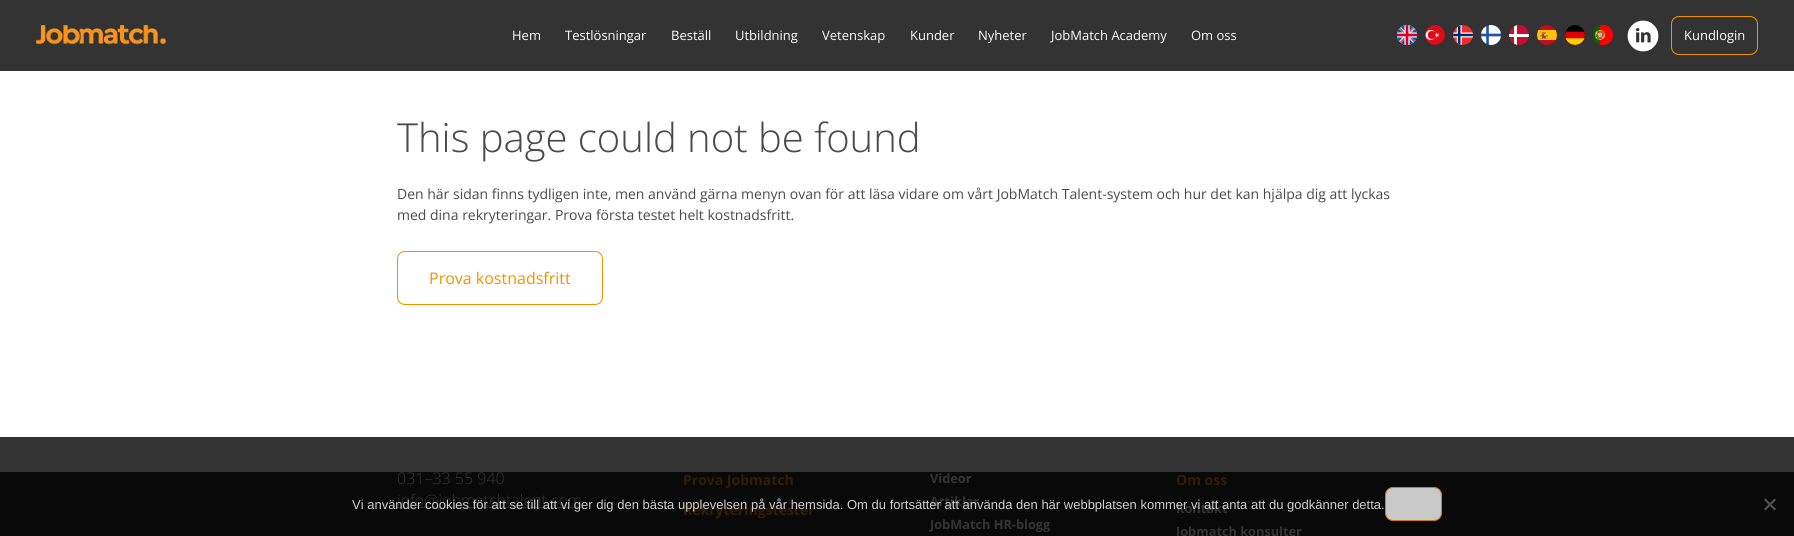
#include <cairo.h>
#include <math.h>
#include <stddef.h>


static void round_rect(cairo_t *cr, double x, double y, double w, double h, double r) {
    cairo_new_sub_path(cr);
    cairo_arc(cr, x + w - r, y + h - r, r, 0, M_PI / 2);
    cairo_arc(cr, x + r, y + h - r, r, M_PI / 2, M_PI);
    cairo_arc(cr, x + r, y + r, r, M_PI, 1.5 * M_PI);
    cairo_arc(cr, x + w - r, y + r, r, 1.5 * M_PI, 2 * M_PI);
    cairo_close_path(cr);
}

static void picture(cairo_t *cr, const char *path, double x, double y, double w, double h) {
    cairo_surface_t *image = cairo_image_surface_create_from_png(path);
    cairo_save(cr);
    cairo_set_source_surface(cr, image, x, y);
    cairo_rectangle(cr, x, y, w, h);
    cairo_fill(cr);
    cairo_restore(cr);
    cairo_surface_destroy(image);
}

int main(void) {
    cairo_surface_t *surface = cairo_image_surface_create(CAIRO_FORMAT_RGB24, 1794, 536);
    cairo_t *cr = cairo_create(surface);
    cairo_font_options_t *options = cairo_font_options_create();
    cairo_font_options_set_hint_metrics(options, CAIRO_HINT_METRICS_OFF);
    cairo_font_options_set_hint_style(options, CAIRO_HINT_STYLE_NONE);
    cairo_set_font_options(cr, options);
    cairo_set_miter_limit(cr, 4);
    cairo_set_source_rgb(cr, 1, 1, 1);
    cairo_paint(cr);
    cairo_set_source_rgb(cr, 0.2, 0.2, 0.2);
    cairo_rectangle(cr, 0, 0, 1794, 71);
    cairo_fill(cr);
    picture(cr, "img1.png", 36, 25, 130, 20);
    cairo_select_font_face(cr, "Open Sans", CAIRO_FONT_SLANT_NORMAL, CAIRO_FONT_WEIGHT_NORMAL);
    cairo_set_font_size(cr, 13);
    cairo_set_source_rgb(cr, 1, 1, 1);
    cairo_move_to(cr, 512, 40);
    cairo_show_text(cr, "Hem");
    cairo_move_to(cr, 565, 40);
    cairo_show_text(cr, "Testlösningar");
    cairo_move_to(cr, 671, 40);
    cairo_show_text(cr, "Beställ");
    cairo_move_to(cr, 735, 40);
    cairo_show_text(cr, "Utbildning");
    cairo_move_to(cr, 822, 40);
    cairo_show_text(cr, "Vetenskap");
    cairo_move_to(cr, 910, 40);
    cairo_show_text(cr, "Kunder");
    cairo_move_to(cr, 978, 40);
    cairo_show_text(cr, "Nyheter");
    cairo_move_to(cr, 1051, 40);
    cairo_show_text(cr, "JobMatch Academy");
    cairo_move_to(cr, 1191, 40);
    cairo_show_text(cr, "Om oss");
    picture(cr, "img2.png", 1397, 25, 20, 20);
    picture(cr, "img3.png", 1425, 25, 20, 20);
    picture(cr, "img4.png", 1453, 25, 20, 20);
    picture(cr, "img5.png", 1481, 25, 20, 20);
    cairo_set_source_rgb(cr, 0.776, 0.047, 0.188);
    cairo_new_path(cr);
    cairo_move_to(cr, 1519, 25);
    cairo_curve_to(cr, 1532, 25, 1532, 45, 1519, 45);
    cairo_curve_to(cr, 1506, 45, 1506, 25, 1519, 25);
    cairo_close_path(cr);
    cairo_fill(cr);
    cairo_set_source_rgb(cr, 1, 1, 1);
    cairo_new_path(cr);
    cairo_move_to(cr, 1514, 26.5);
    cairo_line_to(cr, 1517, 25);
    cairo_line_to(cr, 1517, 45);
    cairo_line_to(cr, 1514, 43.5);
    cairo_close_path(cr);
    cairo_fill(cr);
    cairo_rectangle(cr, 1509, 34, 20, 3);
    cairo_fill(cr);
    picture(cr, "img6.png", 1537, 25, 20, 20);
    picture(cr, "img7.png", 1565, 25, 20, 20);
    picture(cr, "img8.png", 1593, 25, 20, 20);
    picture(cr, "img9.png", 1627, 20, 32, 32);
    round_rect(cr, 1671.5, 16.5, 86, 38, 7.5);
    cairo_set_source_rgb(cr, 0.953, 0.573, 0);
    cairo_set_line_width(cr, 1);
    cairo_stroke(cr);
    cairo_set_source_rgb(cr, 1, 1, 1);
    cairo_move_to(cr, 1684, 40);
    cairo_show_text(cr, "Kundlogin");
    cairo_select_font_face(cr, "Open Sans Light", CAIRO_FONT_SLANT_NORMAL, CAIRO_FONT_WEIGHT_NORMAL);
    cairo_set_font_size(cr, 40);
    cairo_set_source_rgb(cr, 0.29, 0.29, 0.286);
    cairo_move_to(cr, 397, 152);
    cairo_show_text(cr, "This page could not be found");
    cairo_select_font_face(cr, "Open Sans", CAIRO_FONT_SLANT_NORMAL, CAIRO_FONT_WEIGHT_NORMAL);
    cairo_set_font_size(cr, 14);
    cairo_move_to(cr, 397, 199);
    cairo_show_text(cr, "Den här sidan finns tydligen inte, men använd gärna menyn ovan för att läsa vidare om vårt JobMatch Talent-system och hur det kan hjälpa dig att lyckas");
    cairo_move_to(cr, 397, 220);
    cairo_show_text(cr, "med dina rekryteringar. Prova första testet helt kostnadsfritt.");
    round_rect(cr, 397.5, 251.5, 205, 53, 7.5);
    cairo_set_source_rgb(cr, 0.953, 0.573, 0);
    cairo_stroke(cr);
    cairo_set_font_size(cr, 16);
    cairo_move_to(cr, 429, 284);
    cairo_show_text(cr, "Prova kostnadsfritt");
    cairo_set_source_rgb(cr, 0.2, 0.2, 0.2);
    cairo_rectangle(cr, 0, 437, 1794, 35);
    cairo_fill(cr);
    cairo_set_source_rgb(cr, 0.039, 0.039, 0.039);
    cairo_rectangle(cr, 0, 472, 1794, 64);
    cairo_fill(cr);
    cairo_select_font_face(cr, "Open Sans Light", CAIRO_FONT_SLANT_NORMAL, CAIRO_FONT_WEIGHT_NORMAL);
    cairo_set_source_rgb(cr, 0.2, 0.2, 0.2);
    cairo_move_to(cr, 397, 484);
    cairo_show_text(cr, "031–33 55 940");
    cairo_rectangle(cr, 397, 507, 185, 1);
    cairo_fill(cr);
    cairo_move_to(cr, 397, 506);
    cairo_show_text(cr, "info@jobmatchtalent.com");
    cairo_select_font_face(cr, "Open Sans", CAIRO_FONT_SLANT_NORMAL, CAIRO_FONT_WEIGHT_BOLD);
    cairo_set_font_size(cr, 14);
    cairo_set_source_rgb(cr, 0.192, 0.114, 0);
    cairo_move_to(cr, 683, 485);
    cairo_show_text(cr, "Prova Jobmatch");
    cairo_set_font_size(cr, 12.75);
    cairo_set_source_rgb(cr, 0.2, 0.2, 0.2);
    cairo_move_to(cr, 930, 483);
    cairo_show_text(cr, "Videor");
    cairo_move_to(cr, 930, 506);
    cairo_show_text(cr, "Artiklar");
    cairo_move_to(cr, 930, 529);
    cairo_show_text(cr, "JobMatch HR-blogg");
    cairo_set_font_size(cr, 14);
    cairo_set_source_rgb(cr, 0.192, 0.114, 0);
    cairo_move_to(cr, 1176, 485);
    cairo_show_text(cr, "Om oss");
    cairo_set_font_size(cr, 12.75);
    cairo_set_source_rgb(cr, 0.2, 0.2, 0.2);
    cairo_move_to(cr, 1176, 513);
    cairo_show_text(cr, "Kontakt");
    cairo_move_to(cr, 1176, 536);
    cairo_show_text(cr, "Jobmatch konsulter");
    cairo_set_font_size(cr, 14);
    cairo_set_source_rgb(cr, 0.192, 0.114, 0);
    cairo_move_to(cr, 683, 515);
    cairo_show_text(cr, "Rekryteringstester");
    cairo_select_font_face(cr, "Liberation Sans", CAIRO_FONT_SLANT_NORMAL, CAIRO_FONT_WEIGHT_NORMAL);
    cairo_set_font_size(cr, 13);
    cairo_set_source_rgb(cr, 0.812, 0.812, 0.812);
    cairo_move_to(cr, 352, 509);
    cairo_show_text(cr, "Vi använder cookies för att se till att vi ger dig den bästa upplevelsen på vår hemsida. Om du fortsätter att använda den här webbplatsen kommer vi att anta att du godkänner detta.");
    cairo_set_source_rgb(cr, 0.788, 0.788, 0.788);
    round_rect(cr, 1385.5, 487.5, 56, 33, 7.5);
    cairo_fill_preserve(cr);
    cairo_set_source_rgb(cr, 0.804, 0.498, 0.039);
    cairo_stroke(cr);
    cairo_set_source_rgb(cr, 0.322, 0.322, 0.322);
    cairo_new_path(cr);
    cairo_move_to(cr, 1774.5, 498.5);
    cairo_line_to(cr, 1776, 500);
    cairo_line_to(cr, 1765.5, 510.5);
    cairo_line_to(cr, 1764, 509);
    cairo_close_path(cr);
    cairo_fill(cr);
    cairo_new_path(cr);
    cairo_move_to(cr, 1764, 500);
    cairo_line_to(cr, 1765.5, 498.5);
    cairo_line_to(cr, 1776, 509);
    cairo_line_to(cr, 1774.5, 510.5);
    cairo_close_path(cr);
    cairo_fill(cr);
    cairo_surface_write_to_png(surface, "page.png");
    cairo_font_options_destroy(options);
    cairo_destroy(cr);
    cairo_surface_destroy(surface);
    return 0;
}
